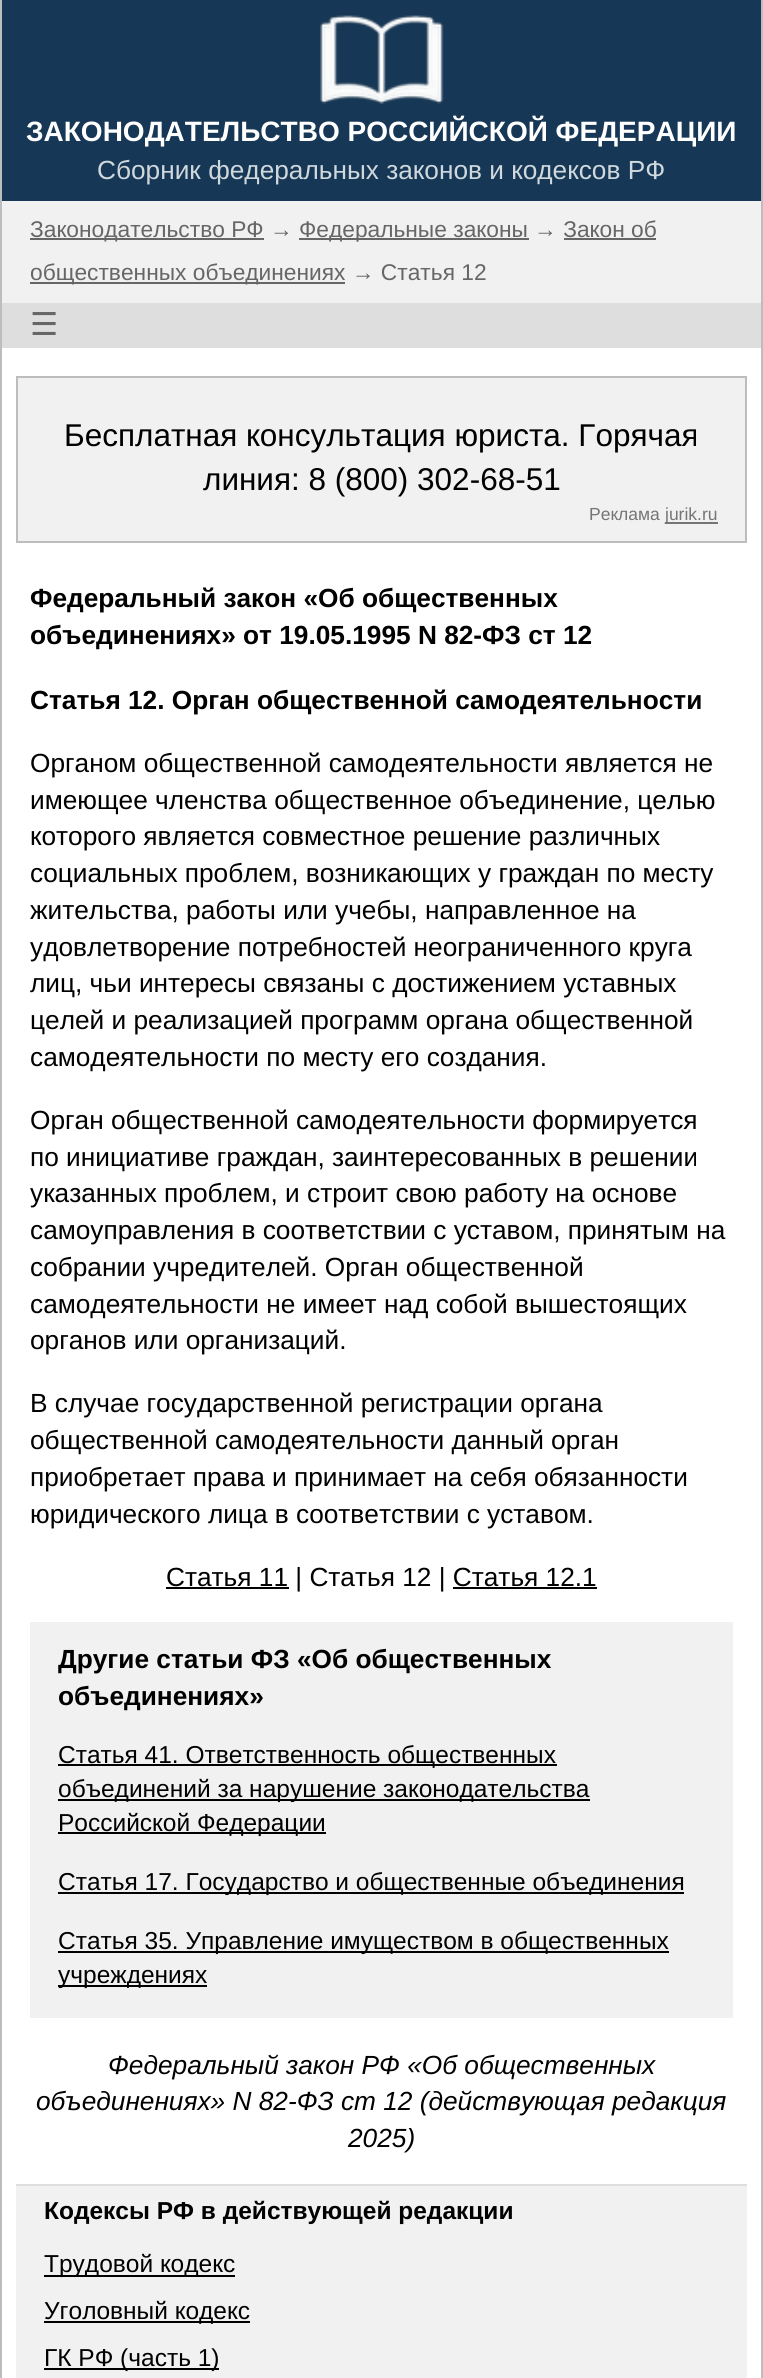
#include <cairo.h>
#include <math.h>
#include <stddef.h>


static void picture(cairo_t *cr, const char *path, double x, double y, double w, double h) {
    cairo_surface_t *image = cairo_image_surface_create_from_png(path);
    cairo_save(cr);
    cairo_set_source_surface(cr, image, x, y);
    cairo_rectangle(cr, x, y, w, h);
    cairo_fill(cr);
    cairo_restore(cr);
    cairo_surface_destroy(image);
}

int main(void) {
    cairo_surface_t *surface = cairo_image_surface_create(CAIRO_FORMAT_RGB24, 763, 2378);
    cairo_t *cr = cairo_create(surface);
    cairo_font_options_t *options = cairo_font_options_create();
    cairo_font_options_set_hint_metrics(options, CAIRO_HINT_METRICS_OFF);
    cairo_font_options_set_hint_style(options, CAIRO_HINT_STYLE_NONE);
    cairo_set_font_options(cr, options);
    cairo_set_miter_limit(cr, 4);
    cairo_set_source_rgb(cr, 1, 1, 1);
    cairo_paint(cr);
    cairo_set_source_rgb(cr, 0.741, 0.741, 0.741);
    cairo_rectangle(cr, 761, 0, 2, 2378);
    cairo_fill(cr);
    cairo_rectangle(cr, 0, 0, 2, 2378);
    cairo_fill(cr);
    cairo_set_source_rgb(cr, 0.086, 0.216, 0.333);
    cairo_rectangle(cr, 2, 0, 759, 201);
    cairo_fill(cr);
    picture(cr, "img1.png", 320, 15, 124, 89);
    cairo_select_font_face(cr, "Liberation Sans", CAIRO_FONT_SLANT_NORMAL, CAIRO_FONT_WEIGHT_BOLD);
    cairo_set_font_size(cr, 28);
    cairo_set_source_rgb(cr, 1, 1, 1);
    cairo_move_to(cr, 26, 141);
    cairo_show_text(cr, "ЗАКОНОДАТЕЛЬСТВО РОССИЙСКОЙ ФЕДЕРАЦИИ");
    cairo_select_font_face(cr, "Liberation Sans", CAIRO_FONT_SLANT_NORMAL, CAIRO_FONT_WEIGHT_NORMAL);
    cairo_set_font_size(cr, 26.25);
    cairo_set_source_rgb(cr, 0.812, 0.847, 0.863);
    cairo_move_to(cr, 97, 179);
    cairo_show_text(cr, "Сборник федеральных законов и кодексов РФ");
    cairo_set_source_rgb(cr, 0.945, 0.945, 0.945);
    cairo_rectangle(cr, 2, 201, 759, 102);
    cairo_fill(cr);
    cairo_set_source_rgb(cr, 0.871, 0.871, 0.871);
    cairo_rectangle(cr, 2, 303, 759, 45);
    cairo_fill(cr);
    cairo_set_source_rgb(cr, 0.4, 0.4, 0.4);
    cairo_rectangle(cr, 30, 238, 234, 2);
    cairo_fill(cr);
    cairo_set_font_size(cr, 22.75);
    cairo_move_to(cr, 30, 237);
    cairo_show_text(cr, "Законодательство РФ →");
    cairo_rectangle(cr, 299, 238, 230, 2);
    cairo_fill(cr);
    cairo_move_to(cr, 299, 237);
    cairo_show_text(cr, "Федеральные законы → Закон об");
    cairo_rectangle(cr, 30, 282, 315, 2);
    cairo_fill(cr);
    cairo_move_to(cr, 30, 280);
    cairo_show_text(cr, "общественных объединениях → Статья 12");
    cairo_rectangle(cr, 564, 238, 92, 2);
    cairo_fill(cr);
    cairo_select_font_face(cr, "DejaVu Sans", CAIRO_FONT_SLANT_NORMAL, CAIRO_FONT_WEIGHT_NORMAL);
    cairo_set_font_size(cr, 31.5);
    cairo_move_to(cr, 30, 335);
    cairo_show_text(cr, "☰");
    cairo_set_source_rgb(cr, 0.945, 0.945, 0.945);
    cairo_rectangle(cr, 17, 377, 729, 165);
    cairo_fill_preserve(cr);
    cairo_set_source_rgb(cr, 0.741, 0.741, 0.741);
    cairo_stroke(cr);
    cairo_select_font_face(cr, "Liberation Sans", CAIRO_FONT_SLANT_NORMAL, CAIRO_FONT_WEIGHT_NORMAL);
    cairo_set_source_rgb(cr, 0, 0, 0);
    cairo_move_to(cr, 64, 446);
    cairo_show_text(cr, "Бесплатная консультация юриста. Горячая");
    cairo_move_to(cr, 203, 490);
    cairo_show_text(cr, "линия: 8 (800) 302-68-51");
    cairo_set_font_size(cr, 17.5);
    cairo_set_source_rgb(cr, 0.459, 0.459, 0.459);
    cairo_move_to(cr, 589, 520);
    cairo_show_text(cr, "Реклама");
    cairo_rectangle(cr, 665, 522, 53, 2);
    cairo_fill(cr);
    cairo_move_to(cr, 665, 520);
    cairo_show_text(cr, "jurik.ru");
    cairo_select_font_face(cr, "Liberation Sans", CAIRO_FONT_SLANT_NORMAL, CAIRO_FONT_WEIGHT_BOLD);
    cairo_set_font_size(cr, 26.25);
    cairo_set_source_rgb(cr, 0, 0, 0);
    cairo_move_to(cr, 30, 607);
    cairo_show_text(cr, "Федеральный закон «Об общественных");
    cairo_move_to(cr, 30, 644);
    cairo_show_text(cr, "объединениях» от 19.05.1995 N 82-ФЗ ст 12");
    cairo_move_to(cr, 30, 709);
    cairo_show_text(cr, "Статья 12. Орган общественной самодеятельности");
    cairo_select_font_face(cr, "Liberation Sans", CAIRO_FONT_SLANT_NORMAL, CAIRO_FONT_WEIGHT_NORMAL);
    cairo_move_to(cr, 30, 772);
    cairo_show_text(cr, "Органом общественной самодеятельности является не");
    cairo_move_to(cr, 30, 809);
    cairo_show_text(cr, "имеющее членства общественное объединение, целью");
    cairo_move_to(cr, 30, 845);
    cairo_show_text(cr, "которого является совместное решение различных");
    cairo_move_to(cr, 30, 882);
    cairo_show_text(cr, "социальных проблем, возникающих у граждан по месту");
    cairo_move_to(cr, 30, 919);
    cairo_show_text(cr, "жительства, работы или учебы, направленное на");
    cairo_move_to(cr, 30, 956);
    cairo_show_text(cr, "удовлетворение потребностей неограниченного круга");
    cairo_move_to(cr, 30, 992);
    cairo_show_text(cr, "лиц, чьи интересы связаны с достижением уставных");
    cairo_move_to(cr, 30, 1029);
    cairo_show_text(cr, "целей и реализацией программ органа общественной");
    cairo_move_to(cr, 30, 1066);
    cairo_show_text(cr, "самодеятельности по месту его создания.");
    cairo_move_to(cr, 30, 1129);
    cairo_show_text(cr, "Орган общественной самодеятельности формируется");
    cairo_move_to(cr, 30, 1166);
    cairo_show_text(cr, "по инициативе граждан, заинтересованных в решении");
    cairo_move_to(cr, 30, 1202);
    cairo_show_text(cr, "указанных проблем, и строит свою работу на основе");
    cairo_move_to(cr, 30, 1239);
    cairo_show_text(cr, "самоуправления в соответствии с уставом, принятым на");
    cairo_move_to(cr, 30, 1276);
    cairo_show_text(cr, "собрании учредителей. Орган общественной");
    cairo_move_to(cr, 30, 1313);
    cairo_show_text(cr, "самодеятельности не имеет над собой вышестоящих");
    cairo_move_to(cr, 30, 1349);
    cairo_show_text(cr, "органов или организаций.");
    cairo_move_to(cr, 30, 1412);
    cairo_show_text(cr, "В случае государственной регистрации органа");
    cairo_move_to(cr, 30, 1449);
    cairo_show_text(cr, "общественной самодеятельности данный орган");
    cairo_move_to(cr, 30, 1486);
    cairo_show_text(cr, "приобретает права и принимает на себя обязанности");
    cairo_move_to(cr, 30, 1523);
    cairo_show_text(cr, "юридического лица в соответствии с уставом.");
    cairo_rectangle(cr, 166, 1587, 123, 2);
    cairo_fill(cr);
    cairo_move_to(cr, 166, 1586);
    cairo_show_text(cr, "Статья 11 | Статья 12 | Статья 12.1");
    cairo_rectangle(cr, 453, 1587, 144, 2);
    cairo_fill(cr);
    cairo_set_source_rgb(cr, 0.945, 0.945, 0.945);
    cairo_rectangle(cr, 30, 1622, 703, 396);
    cairo_fill(cr);
    cairo_select_font_face(cr, "Liberation Sans", CAIRO_FONT_SLANT_NORMAL, CAIRO_FONT_WEIGHT_BOLD);
    cairo_set_source_rgb(cr, 0, 0, 0);
    cairo_move_to(cr, 58, 1668);
    cairo_show_text(cr, "Другие статьи ФЗ «Об общественных");
    cairo_move_to(cr, 58, 1705);
    cairo_show_text(cr, "объединениях»");
    cairo_rectangle(cr, 58, 1764, 499, 2);
    cairo_fill(cr);
    cairo_select_font_face(cr, "Liberation Sans", CAIRO_FONT_SLANT_NORMAL, CAIRO_FONT_WEIGHT_NORMAL);
    cairo_set_font_size(cr, 24.5);
    cairo_move_to(cr, 58, 1763);
    cairo_show_text(cr, "Статья 41. Ответственность общественных");
    cairo_rectangle(cr, 58, 1799, 532, 2);
    cairo_fill(cr);
    cairo_move_to(cr, 58, 1797);
    cairo_show_text(cr, "объединений за нарушение законодательства");
    cairo_rectangle(cr, 58, 1832, 268, 2);
    cairo_fill(cr);
    cairo_move_to(cr, 58, 1831);
    cairo_show_text(cr, "Российской Федерации");
    cairo_rectangle(cr, 58, 1892, 626, 2);
    cairo_fill(cr);
    cairo_move_to(cr, 58, 1890);
    cairo_show_text(cr, "Статья 17. Государство и общественные объединения");
    cairo_rectangle(cr, 58, 1951, 611, 2);
    cairo_fill(cr);
    cairo_move_to(cr, 58, 1949);
    cairo_show_text(cr, "Статья 35. Управление имуществом в общественных");
    cairo_rectangle(cr, 58, 1985, 149, 2);
    cairo_fill(cr);
    cairo_move_to(cr, 58, 1983);
    cairo_show_text(cr, "учреждениях");
    cairo_select_font_face(cr, "Liberation Sans", CAIRO_FONT_SLANT_ITALIC, CAIRO_FONT_WEIGHT_NORMAL);
    cairo_set_font_size(cr, 26.25);
    cairo_move_to(cr, 108, 2074);
    cairo_show_text(cr, "Федеральный закон РФ «Об общественных");
    cairo_move_to(cr, 36, 2110);
    cairo_show_text(cr, "объединениях» N 82-ФЗ ст 12 (действующая редакция");
    cairo_move_to(cr, 348, 2147);
    cairo_show_text(cr, "2025)");
    cairo_set_source_rgb(cr, 0.945, 0.945, 0.945);
    cairo_rectangle(cr, 16, 2186, 731, 192);
    cairo_fill(cr);
    cairo_set_source_rgb(cr, 0.871, 0.871, 0.871);
    cairo_rectangle(cr, 16, 2184, 731, 2);
    cairo_fill(cr);
    cairo_select_font_face(cr, "Liberation Sans", CAIRO_FONT_SLANT_NORMAL, CAIRO_FONT_WEIGHT_BOLD);
    cairo_set_font_size(cr, 24.5);
    cairo_set_source_rgb(cr, 0, 0, 0);
    cairo_move_to(cr, 44, 2219);
    cairo_show_text(cr, "Кодексы РФ в действующей редакции");
    cairo_rectangle(cr, 44, 2275, 191, 2);
    cairo_fill(cr);
    cairo_select_font_face(cr, "Liberation Sans", CAIRO_FONT_SLANT_NORMAL, CAIRO_FONT_WEIGHT_NORMAL);
    cairo_move_to(cr, 44, 2272);
    cairo_show_text(cr, "Трудовой кодекс");
    cairo_rectangle(cr, 44, 2321, 206, 2);
    cairo_fill(cr);
    cairo_move_to(cr, 44, 2319);
    cairo_show_text(cr, "Уголовный кодекс");
    cairo_rectangle(cr, 44, 2368, 175, 2);
    cairo_fill(cr);
    cairo_move_to(cr, 44, 2366);
    cairo_show_text(cr, "ГК РФ (часть 1)");
    cairo_surface_write_to_png(surface, "page.png");
    cairo_font_options_destroy(options);
    cairo_destroy(cr);
    cairo_surface_destroy(surface);
    return 0;
}
